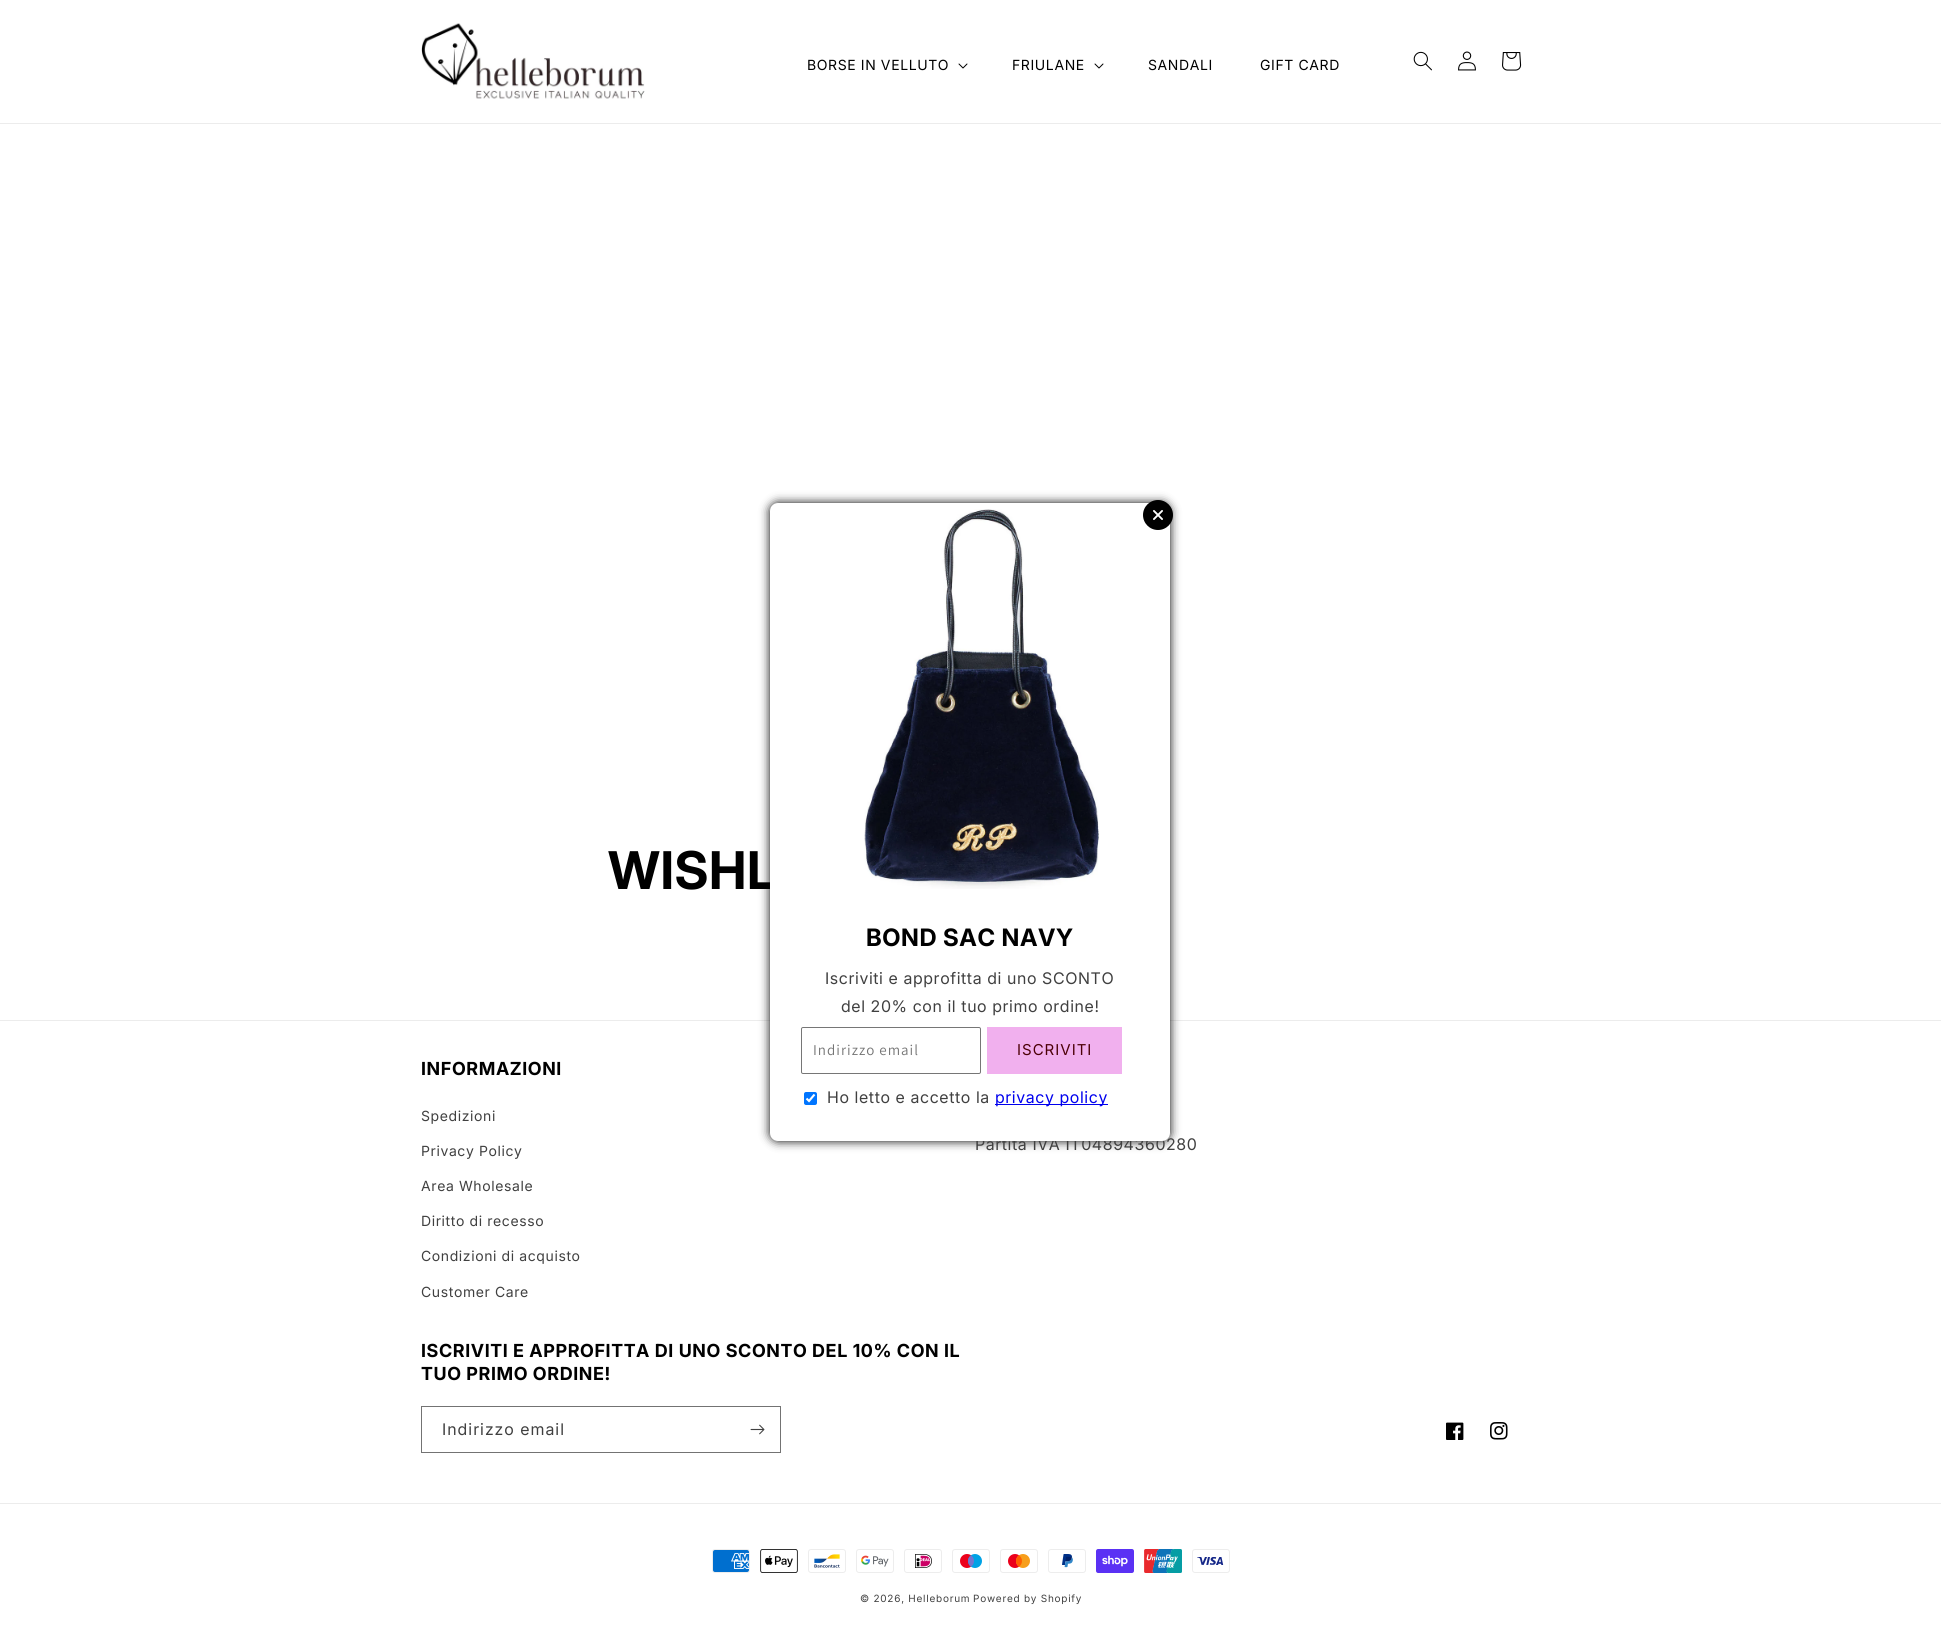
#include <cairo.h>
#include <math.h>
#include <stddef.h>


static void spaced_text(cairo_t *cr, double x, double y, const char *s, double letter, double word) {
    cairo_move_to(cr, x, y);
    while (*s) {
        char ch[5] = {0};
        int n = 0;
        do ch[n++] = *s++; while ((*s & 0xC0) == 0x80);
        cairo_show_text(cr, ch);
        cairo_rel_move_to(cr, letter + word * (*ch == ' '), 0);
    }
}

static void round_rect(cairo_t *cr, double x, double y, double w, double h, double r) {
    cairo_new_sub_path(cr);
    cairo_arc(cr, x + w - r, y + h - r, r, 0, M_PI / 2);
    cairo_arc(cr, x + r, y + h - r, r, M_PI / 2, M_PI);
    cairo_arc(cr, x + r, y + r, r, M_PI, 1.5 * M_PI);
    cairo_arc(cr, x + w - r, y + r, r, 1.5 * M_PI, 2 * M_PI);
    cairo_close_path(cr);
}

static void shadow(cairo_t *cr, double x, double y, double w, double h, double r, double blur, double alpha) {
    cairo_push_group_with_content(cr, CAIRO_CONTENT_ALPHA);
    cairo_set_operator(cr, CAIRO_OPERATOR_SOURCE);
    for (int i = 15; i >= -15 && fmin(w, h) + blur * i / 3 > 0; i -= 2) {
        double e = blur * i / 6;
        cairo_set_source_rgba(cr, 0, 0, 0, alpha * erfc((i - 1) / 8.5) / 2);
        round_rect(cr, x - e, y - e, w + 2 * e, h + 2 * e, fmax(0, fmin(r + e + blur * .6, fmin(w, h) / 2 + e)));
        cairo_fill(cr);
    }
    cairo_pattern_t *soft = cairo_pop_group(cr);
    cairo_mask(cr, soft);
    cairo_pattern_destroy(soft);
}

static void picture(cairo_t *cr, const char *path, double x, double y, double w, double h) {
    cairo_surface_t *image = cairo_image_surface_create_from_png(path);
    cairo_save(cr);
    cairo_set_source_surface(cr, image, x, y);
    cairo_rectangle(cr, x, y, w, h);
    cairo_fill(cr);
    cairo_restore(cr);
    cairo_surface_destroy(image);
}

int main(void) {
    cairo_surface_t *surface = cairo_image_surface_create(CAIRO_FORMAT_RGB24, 1941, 1644);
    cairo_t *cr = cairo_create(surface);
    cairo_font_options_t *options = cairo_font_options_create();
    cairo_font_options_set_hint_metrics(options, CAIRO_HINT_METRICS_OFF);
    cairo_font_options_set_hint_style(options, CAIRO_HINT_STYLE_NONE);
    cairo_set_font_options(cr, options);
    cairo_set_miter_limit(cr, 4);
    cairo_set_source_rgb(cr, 1, 1, 1);
    cairo_paint(cr);
    cairo_set_source_rgb(cr, 0.922, 0.922, 0.922);
    cairo_rectangle(cr, 0, 123, 1941, 1);
    cairo_fill(cr);
    picture(cr, "img1.png", 421, 23, 224, 76);
    cairo_select_font_face(cr, "Inter", CAIRO_FONT_SLANT_NORMAL, CAIRO_FONT_WEIGHT_NORMAL);
    cairo_set_font_size(cr, 14);
    cairo_set_source_rgb(cr, 0, 0, 0);
    spaced_text(cr, 807, 70, "BORSE IN VELLUTO", 0.6, 0);
    picture(cr, "img2.png", 958, 63, 10, 6);
    spaced_text(cr, 1012, 70, "FRIULANE", 0.6, 0);
    picture(cr, "img2.png", 1094, 63, 10, 6);
    spaced_text(cr, 1148, 70, "SANDALI", 0.6, 0);
    spaced_text(cr, 1260, 70, "GIFT CARD", 0.6, 0);
    picture(cr, "img3.png", 1413, 51, 19, 20);
    picture(cr, "img4.png", 1458, 51, 18, 20);
    picture(cr, "img5.png", 1502, 52, 20, 19);
    cairo_select_font_face(cr, "Inter", CAIRO_FONT_SLANT_NORMAL, CAIRO_FONT_WEIGHT_BOLD);
    cairo_set_font_size(cr, 52);
    spaced_text(cr, 608, 889, "WISHL", 0.6, 0);
    cairo_set_source_rgb(cr, 0.922, 0.922, 0.922);
    cairo_rectangle(cr, 0, 1020, 1941, 1);
    cairo_fill(cr);
    cairo_set_source_rgb(cr, 0, 0, 0);
    shadow(cr, 770, 503, 400, 638, 8, 5, 1);
    cairo_select_font_face(cr, "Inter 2", CAIRO_FONT_SLANT_NORMAL, CAIRO_FONT_WEIGHT_NORMAL);
    cairo_set_font_size(cr, 16);
    cairo_set_source_rgb(cr, 0.251, 0.251, 0.251);
    spaced_text(cr, 975, 1150, "Partita IVA IT04894360280", 0.6, 0);
    cairo_set_source_rgb(cr, 1, 1, 1);
    round_rect(cr, 770, 503, 400, 638, 8);
    cairo_fill(cr);
    picture(cr, "img6.png", 1143, 500, 30, 30);
    picture(cr, "img7.png", 864, 509, 235, 380);
    cairo_select_font_face(cr, "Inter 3", CAIRO_FONT_SLANT_NORMAL, CAIRO_FONT_WEIGHT_BOLD);
    cairo_set_font_size(cr, 24);
    cairo_set_source_rgb(cr, 0, 0, 0);
    spaced_text(cr, 866, 946, "BOND SAC NAVY", 0.6, 0);
    cairo_select_font_face(cr, "Inter 2", CAIRO_FONT_SLANT_NORMAL, CAIRO_FONT_WEIGHT_NORMAL);
    cairo_set_font_size(cr, 16);
    cairo_set_source_rgb(cr, 0.251, 0.251, 0.251);
    spaced_text(cr, 825, 984, "Iscriviti e approfitta di uno SCONTO", 0.6, 0);
    spaced_text(cr, 841, 1012, "del 20% con il tuo primo ordine!", 0.6, 0);
    round_rect(cr, 801.5, 1027.5, 179, 46, 1.5);
    cairo_set_source_rgb(cr, 0.463, 0.463, 0.463);
    cairo_set_line_width(cr, 1);
    cairo_stroke(cr);
    cairo_select_font_face(cr, "Assistant", CAIRO_FONT_SLANT_NORMAL, CAIRO_FONT_WEIGHT_NORMAL);
    cairo_set_font_size(cr, 15);
    cairo_set_source_rgb(cr, 0.459, 0.459, 0.459);
    spaced_text(cr, 813, 1055, "Indirizzo email", 1, 0);
    cairo_set_source_rgb(cr, 0.945, 0.69, 0.933);
    cairo_rectangle(cr, 987, 1027, 135, 47);
    cairo_fill(cr);
    cairo_select_font_face(cr, "Inter", CAIRO_FONT_SLANT_NORMAL, CAIRO_FONT_WEIGHT_NORMAL);
    cairo_set_source_rgb(cr, 0.298, 0, 0.031);
    spaced_text(cr, 1017, 1055, "ISCRIVITI", 1, 0);
    cairo_set_source_rgb(cr, 0, 0.459, 1);
    round_rect(cr, 804, 1092, 13, 13, 2);
    cairo_fill(cr);
    cairo_new_path(cr);
    cairo_move_to(cr, 806.5, 1098.5);
    cairo_line_to(cr, 809, 1101);
    cairo_line_to(cr, 814.5, 1094.5);
    cairo_set_source_rgb(cr, 1, 1, 1);
    cairo_set_line_width(cr, 2.1);
    cairo_stroke(cr);
    cairo_select_font_face(cr, "Inter 2", CAIRO_FONT_SLANT_NORMAL, CAIRO_FONT_WEIGHT_NORMAL);
    cairo_set_font_size(cr, 16);
    cairo_set_source_rgb(cr, 0.251, 0.251, 0.251);
    spaced_text(cr, 827, 1103, "Ho letto e accetto la", 0.6, 0);
    cairo_set_source_rgb(cr, 0, 0, 0.933);
    cairo_rectangle(cr, 995, 1104, 113, 1);
    cairo_fill(cr);
    spaced_text(cr, 995, 1103, "privacy policy", 0.6, 0);
    cairo_select_font_face(cr, "Inter 2", CAIRO_FONT_SLANT_NORMAL, CAIRO_FONT_WEIGHT_BOLD);
    cairo_set_font_size(cr, 18);
    cairo_set_source_rgb(cr, 0, 0, 0);
    spaced_text(cr, 421, 1075, "INFORMAZIONI", 0.6, 0);
    cairo_select_font_face(cr, "Inter", CAIRO_FONT_SLANT_NORMAL, CAIRO_FONT_WEIGHT_NORMAL);
    cairo_set_font_size(cr, 14);
    cairo_set_source_rgb(cr, 0.251, 0.251, 0.251);
    spaced_text(cr, 421, 1121, "Spedizioni", 0.6, 0);
    spaced_text(cr, 421, 1156, "Privacy Policy", 0.6, 0);
    spaced_text(cr, 421, 1191, "Area Wholesale", 0.6, 0);
    spaced_text(cr, 421, 1226, "Diritto di recesso", 0.6, 0);
    spaced_text(cr, 421, 1261, "Condizioni di acquisto", 0.6, 0);
    spaced_text(cr, 421, 1297, "Customer Care", 0.6, 0);
    cairo_select_font_face(cr, "Inter 2", CAIRO_FONT_SLANT_NORMAL, CAIRO_FONT_WEIGHT_BOLD);
    cairo_set_font_size(cr, 18);
    cairo_set_source_rgb(cr, 0, 0, 0);
    spaced_text(cr, 421, 1357, "ISCRIVITI E APPROFITTA DI UNO SCONTO DEL 10% CON IL", 0.6, 0);
    spaced_text(cr, 421, 1380, "TUO PRIMO ORDINE!", 0.6, 0);
    cairo_rectangle(cr, 421.5, 1406.5, 359, 46);
    cairo_set_source_rgb(cr, 0.451, 0.451, 0.451);
    cairo_set_line_width(cr, 1);
    cairo_stroke(cr);
    cairo_select_font_face(cr, "Inter 2", CAIRO_FONT_SLANT_NORMAL, CAIRO_FONT_WEIGHT_NORMAL);
    cairo_set_font_size(cr, 16);
    cairo_set_source_rgb(cr, 0.251, 0.251, 0.251);
    spaced_text(cr, 442, 1435, "Indirizzo email", 1, 0);
    picture(cr, "img8.png", 750, 1424, 15, 11);
    picture(cr, "img9.png", 1446, 1422, 18, 18);
    picture(cr, "img10.png", 1490, 1422, 18, 18);
    cairo_set_source_rgb(cr, 0.922, 0.922, 0.922);
    cairo_rectangle(cr, 0, 1503, 1941, 1);
    cairo_fill(cr);
    picture(cr, "img11.png", 712, 1549, 38, 24);
    picture(cr, "img12.png", 760, 1549, 38, 24);
    picture(cr, "img13.png", 808, 1549, 38, 24);
    picture(cr, "img14.png", 856, 1549, 38, 24);
    picture(cr, "img15.png", 904, 1549, 38, 24);
    picture(cr, "img16.png", 952, 1549, 38, 24);
    picture(cr, "img17.png", 1000, 1549, 38, 24);
    picture(cr, "img18.png", 1048, 1549, 38, 24);
    picture(cr, "img19.png", 1096, 1549, 38, 24);
    picture(cr, "img20.png", 1144, 1549, 38, 24);
    picture(cr, "img21.png", 1192, 1549, 38, 24);
    cairo_select_font_face(cr, "Inter", CAIRO_FONT_SLANT_NORMAL, CAIRO_FONT_WEIGHT_NORMAL);
    cairo_set_font_size(cr, 10);
    cairo_set_source_rgb(cr, 0.251, 0.251, 0.251);
    spaced_text(cr, 860, 1602, "© 2026, Helleborum", 0.75, 0);
    spaced_text(cr, 973, 1602, "Powered by Shopify", 0.75, 0);
    cairo_surface_write_to_png(surface, "page.png");
    cairo_font_options_destroy(options);
    cairo_destroy(cr);
    cairo_surface_destroy(surface);
    return 0;
}
